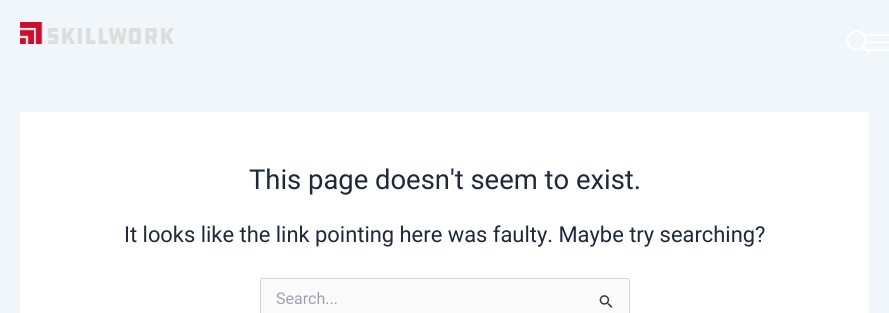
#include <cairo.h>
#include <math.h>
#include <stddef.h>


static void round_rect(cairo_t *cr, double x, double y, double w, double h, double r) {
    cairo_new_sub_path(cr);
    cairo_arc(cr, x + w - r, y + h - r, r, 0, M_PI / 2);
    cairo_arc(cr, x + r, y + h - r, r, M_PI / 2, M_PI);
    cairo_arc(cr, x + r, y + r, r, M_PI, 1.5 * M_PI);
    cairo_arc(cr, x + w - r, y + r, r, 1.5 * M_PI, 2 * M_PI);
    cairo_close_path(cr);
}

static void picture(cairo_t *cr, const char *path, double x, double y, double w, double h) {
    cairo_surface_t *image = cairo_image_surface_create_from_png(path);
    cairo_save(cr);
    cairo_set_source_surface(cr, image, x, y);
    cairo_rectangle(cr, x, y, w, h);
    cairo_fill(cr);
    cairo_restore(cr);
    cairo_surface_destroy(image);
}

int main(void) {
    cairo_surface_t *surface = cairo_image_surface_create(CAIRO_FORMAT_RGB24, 889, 313);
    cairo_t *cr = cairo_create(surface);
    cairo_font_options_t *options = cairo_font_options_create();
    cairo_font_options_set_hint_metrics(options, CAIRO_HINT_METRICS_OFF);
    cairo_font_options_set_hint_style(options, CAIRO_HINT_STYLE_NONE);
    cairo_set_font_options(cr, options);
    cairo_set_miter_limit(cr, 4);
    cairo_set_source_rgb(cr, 0.941, 0.961, 0.98);
    cairo_paint(cr);
    picture(cr, "img1.png", 20, 22, 154, 22);
    picture(cr, "img2.png", 846, 30, 25, 25);
    picture(cr, "img3.png", 865, 34, 24, 17);
    cairo_set_source_rgb(cr, 1, 1, 1);
    cairo_rectangle(cr, 20, 112, 849, 201);
    cairo_fill(cr);
    cairo_select_font_face(cr, "Roboto", CAIRO_FONT_SLANT_NORMAL, CAIRO_FONT_WEIGHT_NORMAL);
    cairo_set_font_size(cr, 27.4);
    cairo_set_source_rgb(cr, 0.118, 0.161, 0.231);
    cairo_move_to(cr, 249, 189);
    cairo_show_text(cr, "This page doesn't seem to exist.");
    cairo_set_font_size(cr, 21.9);
    cairo_move_to(cr, 124, 242);
    cairo_show_text(cr, "It looks like the link pointing here was faulty. Maybe try searching?");
    cairo_set_source_rgb(cr, 0.98, 0.98, 0.98);
    round_rect(cr, 260.5, 278.5, 369, 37, 1.5);
    cairo_fill_preserve(cr);
    cairo_set_source_rgb(cr, 0.82, 0.835, 0.859);
    cairo_set_line_width(cr, 1);
    cairo_stroke(cr);
    cairo_set_font_size(cr, 16);
    cairo_set_source_rgb(cr, 0.612, 0.639, 0.686);
    cairo_move_to(cr, 276, 304);
    cairo_show_text(cr, "Search...");
    picture(cr, "img4.png", 599, 295, 14, 13);
    cairo_surface_write_to_png(surface, "page.png");
    cairo_font_options_destroy(options);
    cairo_destroy(cr);
    cairo_surface_destroy(surface);
    return 0;
}
